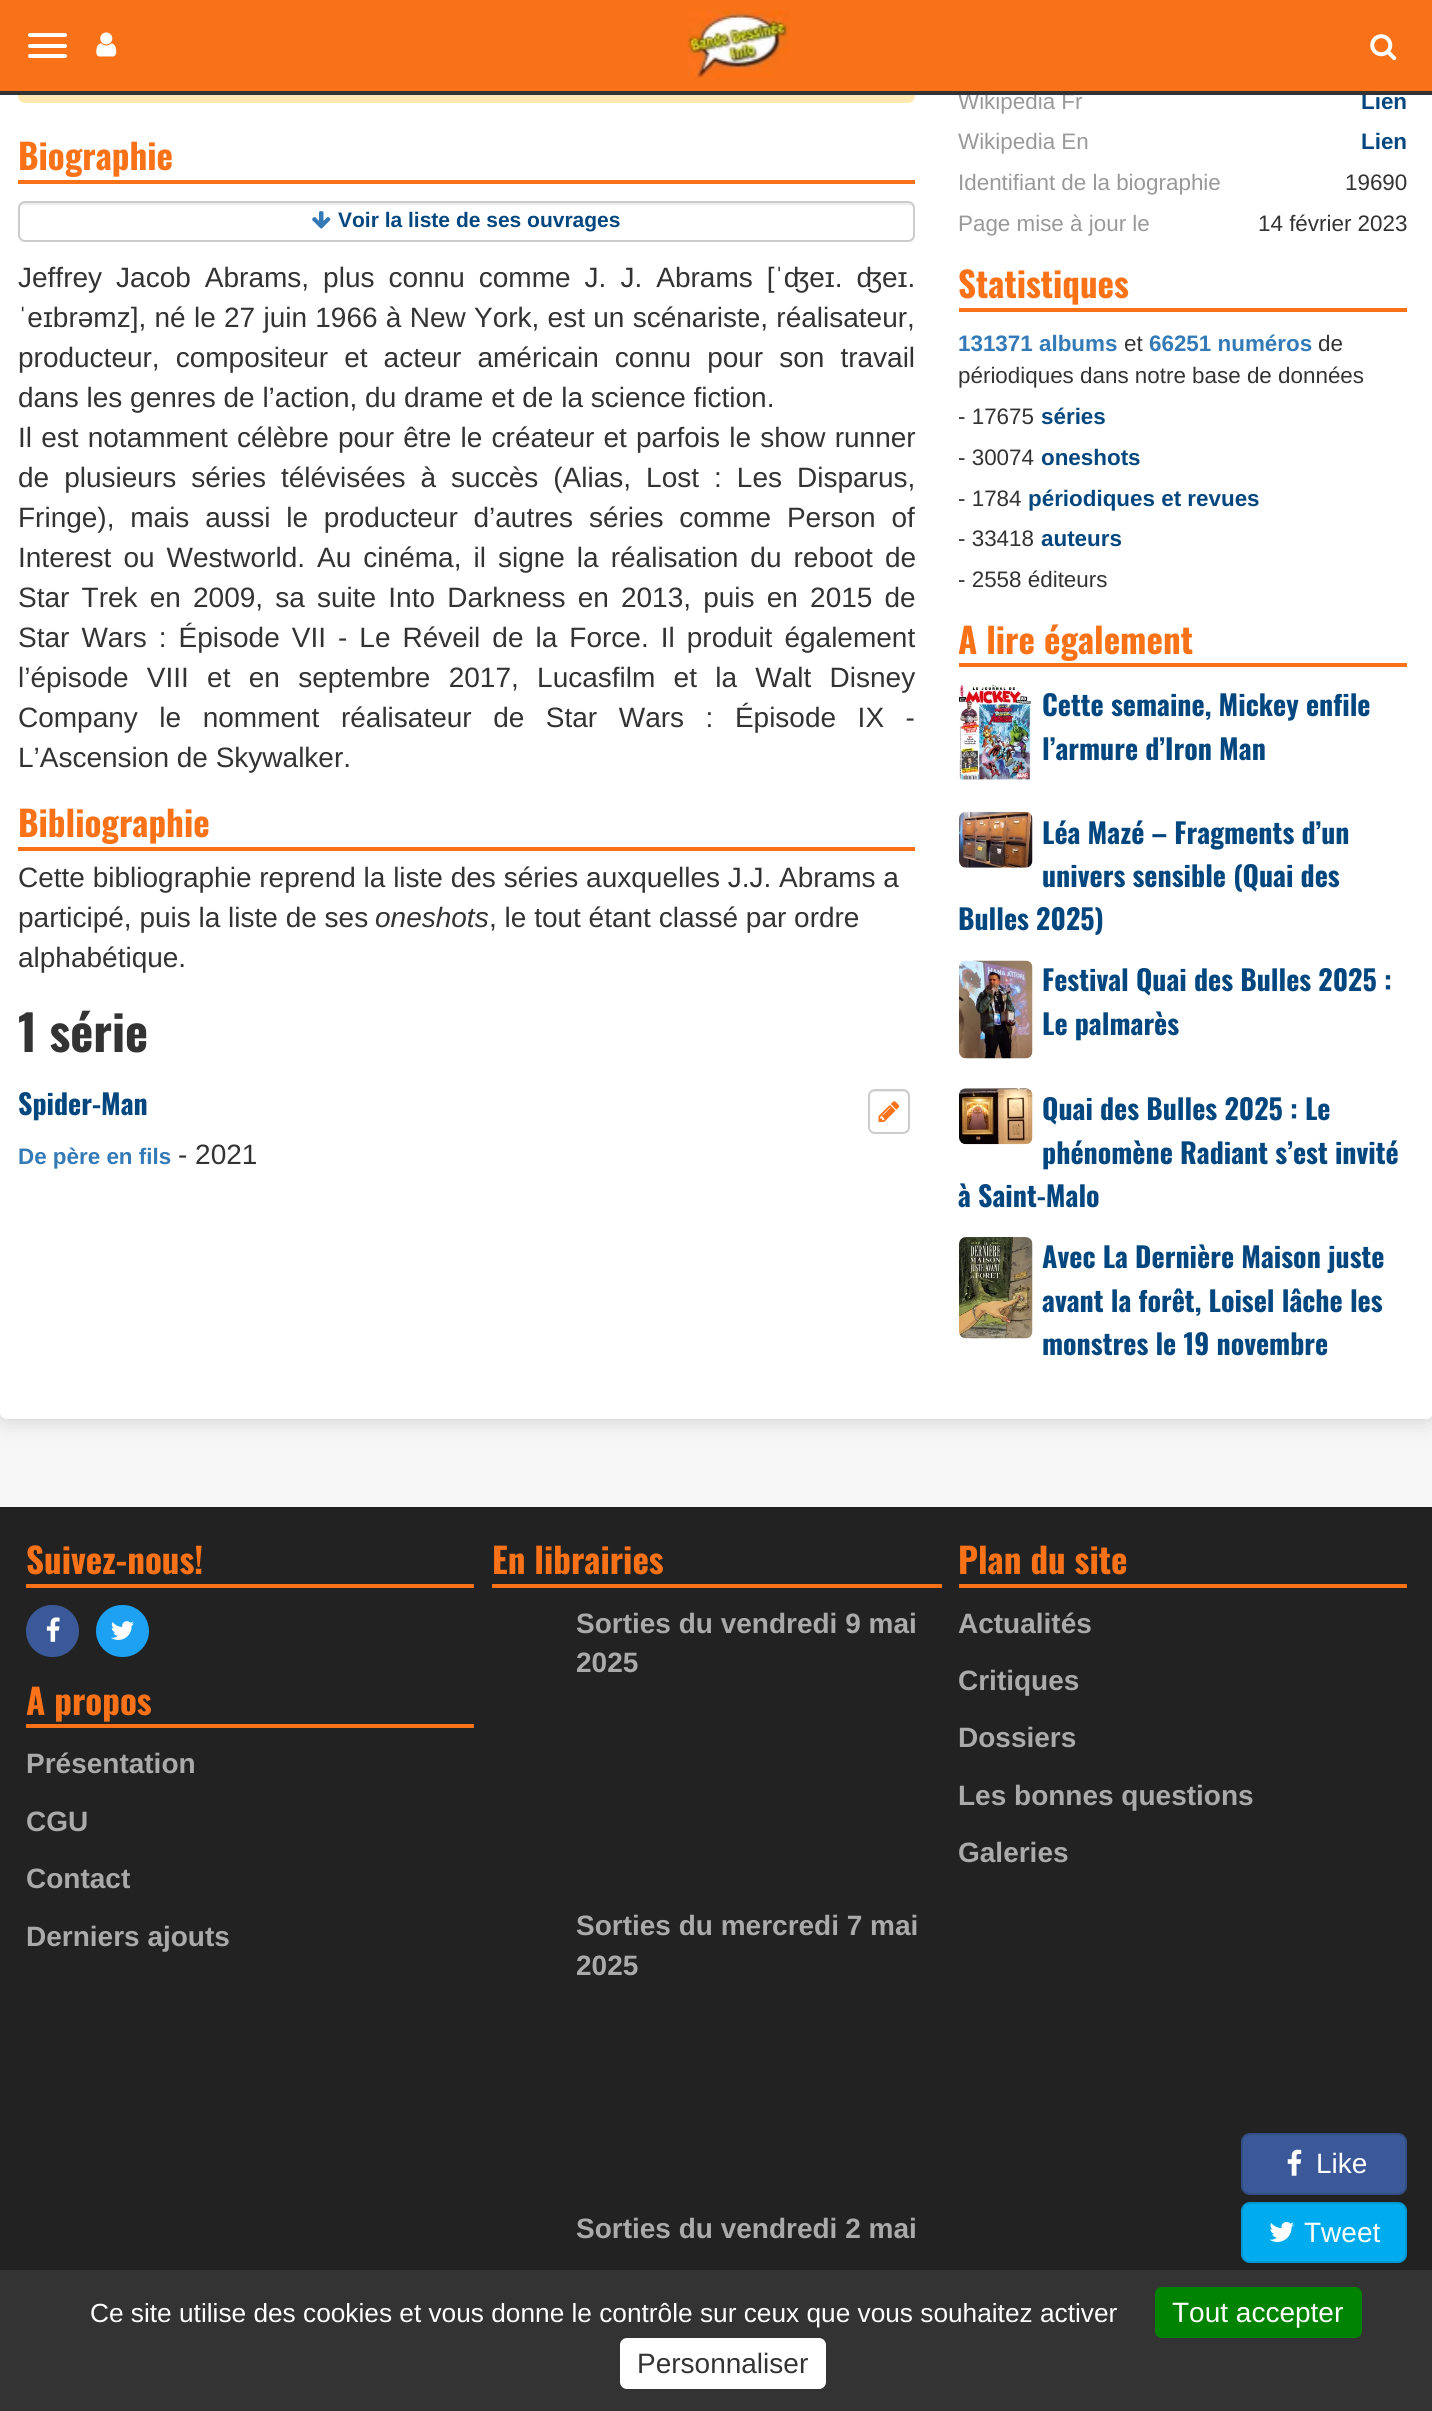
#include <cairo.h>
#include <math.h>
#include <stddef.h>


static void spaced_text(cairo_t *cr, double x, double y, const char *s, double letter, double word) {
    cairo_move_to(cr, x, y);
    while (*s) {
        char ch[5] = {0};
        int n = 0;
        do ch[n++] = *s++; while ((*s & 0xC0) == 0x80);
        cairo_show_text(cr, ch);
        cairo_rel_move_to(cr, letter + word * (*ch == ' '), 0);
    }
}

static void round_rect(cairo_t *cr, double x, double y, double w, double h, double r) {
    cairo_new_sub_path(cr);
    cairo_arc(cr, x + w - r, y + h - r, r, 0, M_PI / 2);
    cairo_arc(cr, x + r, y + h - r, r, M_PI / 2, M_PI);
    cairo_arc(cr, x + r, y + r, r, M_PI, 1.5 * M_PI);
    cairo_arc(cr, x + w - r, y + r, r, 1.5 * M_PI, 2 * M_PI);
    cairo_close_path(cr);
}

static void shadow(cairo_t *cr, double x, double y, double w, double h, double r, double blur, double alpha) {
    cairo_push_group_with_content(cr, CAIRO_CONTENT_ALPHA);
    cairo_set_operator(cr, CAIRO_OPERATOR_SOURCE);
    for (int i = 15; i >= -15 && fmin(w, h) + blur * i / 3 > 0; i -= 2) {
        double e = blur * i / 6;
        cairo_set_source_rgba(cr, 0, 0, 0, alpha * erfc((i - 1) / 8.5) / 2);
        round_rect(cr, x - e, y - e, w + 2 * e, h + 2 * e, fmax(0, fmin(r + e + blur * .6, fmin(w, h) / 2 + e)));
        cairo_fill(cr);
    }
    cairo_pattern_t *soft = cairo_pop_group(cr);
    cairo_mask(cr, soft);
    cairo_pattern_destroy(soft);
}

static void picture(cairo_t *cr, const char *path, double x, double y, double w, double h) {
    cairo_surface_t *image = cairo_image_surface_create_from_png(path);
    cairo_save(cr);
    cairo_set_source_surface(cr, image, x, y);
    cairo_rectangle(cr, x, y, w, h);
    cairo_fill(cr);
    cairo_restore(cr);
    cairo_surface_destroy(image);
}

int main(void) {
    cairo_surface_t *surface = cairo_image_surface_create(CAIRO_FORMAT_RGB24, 1432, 2411);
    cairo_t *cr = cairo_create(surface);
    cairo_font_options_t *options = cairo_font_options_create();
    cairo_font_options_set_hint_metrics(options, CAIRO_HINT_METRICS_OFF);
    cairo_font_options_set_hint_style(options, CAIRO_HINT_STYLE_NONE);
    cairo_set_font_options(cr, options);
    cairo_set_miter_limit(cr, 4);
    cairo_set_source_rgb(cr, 0.965, 0.965, 0.965);
    cairo_paint(cr);
    cairo_set_source_rgb(cr, 0.8, 0.8, 0.8);
    shadow(cr, 0, -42, 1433, 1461, 7, 11.5, 1);
    cairo_set_source_rgb(cr, 1, 1, 1);
    round_rect(cr, 0, -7, 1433, 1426, 7);
    cairo_fill(cr);
    cairo_set_source_rgb(cr, 1, 0.914, 0.694);
    round_rect(cr, 18, -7, 897, 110, 7);
    cairo_fill(cr);
    cairo_set_source_rgb(cr, 0.98, 0.447, 0.094);
    cairo_rectangle(cr, 0, 0, 1432, 91);
    cairo_fill(cr);
    cairo_select_font_face(cr, "Liberation Sans", CAIRO_FONT_SLANT_NORMAL, CAIRO_FONT_WEIGHT_NORMAL);
    cairo_set_font_size(cr, 22.4);
    cairo_set_source_rgb(cr, 0.6, 0.6, 0.6);
    cairo_move_to(cr, 958, 109);
    cairo_show_text(cr, "Wikipedia Fr");
    cairo_select_font_face(cr, "Liberation Sans", CAIRO_FONT_SLANT_NORMAL, CAIRO_FONT_WEIGHT_BOLD);
    cairo_set_source_rgb(cr, 0.016, 0.278, 0.498);
    cairo_move_to(cr, 1361, 109);
    cairo_show_text(cr, "Lien");
    cairo_set_source_rgb(cr, 0.2, 0.2, 0.2);
    cairo_rectangle(cr, 0, 91, 1432, 4);
    cairo_fill(cr);
    cairo_set_source_rgb(cr, 1, 1, 1);
    round_rect(cr, 28, 33, 39, 4, 2);
    cairo_fill(cr);
    round_rect(cr, 28, 44, 39, 4, 2);
    cairo_fill(cr);
    round_rect(cr, 28, 54, 39, 4, 2);
    cairo_fill(cr);
    picture(cr, "img1.png", 96, 32, 21, 25);
    picture(cr, "img2.png", 687, 10, 102, 70);
    picture(cr, "img3.png", 1370, 34, 27, 27);
    cairo_set_source_rgb(cr, 0.98, 0.447, 0.094);
    cairo_rectangle(cr, 18, 180, 897, 4);
    cairo_fill(cr);
    cairo_select_font_face(cr, "Oswald", CAIRO_FONT_SLANT_NORMAL, CAIRO_FONT_WEIGHT_BOLD);
    cairo_set_font_size(cr, 35);
    cairo_move_to(cr, 18, 170);
    cairo_show_text(cr, "Biographie");
    cairo_set_source_rgb(cr, 0.925, 0.925, 0.925);
    cairo_new_path(cr);
    cairo_move_to(cr, 24, 205);
    cairo_line_to(cr, 908, 205);
    cairo_curve_to(cr, 911, 205, 914, 207, 914, 210);
    cairo_line_to(cr, 914, 208);
    cairo_curve_to(cr, 914, 205, 912, 203, 909, 203);
    cairo_line_to(cr, 24, 203);
    cairo_curve_to(cr, 21, 203, 19, 205, 19, 208);
    cairo_line_to(cr, 19, 210);
    cairo_curve_to(cr, 19, 207, 22, 205, 24, 205);
    cairo_close_path(cr);
    cairo_fill(cr);
    round_rect(cr, 19, 202, 895, 39, 6);
    cairo_set_source_rgb(cr, 0.8, 0.8, 0.8);
    cairo_stroke(cr);
    picture(cr, "img4.png", 312, 211, 19, 18);
    cairo_select_font_face(cr, "Liberation Sans", CAIRO_FONT_SLANT_NORMAL, CAIRO_FONT_WEIGHT_BOLD);
    cairo_set_font_size(cr, 21);
    cairo_set_source_rgb(cr, 0.016, 0.278, 0.498);
    cairo_move_to(cr, 338, 227);
    cairo_show_text(cr, "Voir la liste de ses ouvrages");
    cairo_select_font_face(cr, "Liberation Sans", CAIRO_FONT_SLANT_NORMAL, CAIRO_FONT_WEIGHT_NORMAL);
    cairo_set_font_size(cr, 28);
    cairo_set_source_rgb(cr, 0.2, 0.2, 0.2);
    spaced_text(cr, 18, 287, "Jeffrey Jacob Abrams, plus connu comme J. J. Abrams [ˈʤeɪ. ʤeɪ.", 0, 6.25);
    spaced_text(cr, 18, 327, "ˈeɪbrəmz], né le 27 juin 1966 à New York, est un scénariste, réalisateur,", 0, 0.5);
    spaced_text(cr, 18, 367, "producteur, compositeur et acteur américain connu pour son travail", 0, 8.25);
    cairo_move_to(cr, 18, 407);
    cairo_show_text(cr, "dans les genres de l’action, du drame et de la science fiction.");
    spaced_text(cr, 18, 447, "Il est notamment célèbre pour être le créateur et parfois le show runner", 0, 1.4);
    spaced_text(cr, 18, 487, "de plusieurs séries télévisées à succès (Alias, Lost : Les Disparus,", 0, 7.25);
    spaced_text(cr, 18, 527, "Fringe), mais aussi le producteur d’autres séries comme Person of", 0, 8);
    spaced_text(cr, 18, 567, "Interest ou Westworld. Au cinéma, il signe la réalisation du reboot de", 0, 4.25);
    spaced_text(cr, 18, 607, "Star Trek en 2009, sa suite Into Darkness en 2013, puis en 2015 de", 0, 4.4);
    spaced_text(cr, 18, 647, "Star Wars : Épisode VII - Le Réveil de la Force. Il produit également", 0, 4.25);
    spaced_text(cr, 18, 687, "l’épisode VIII et en septembre 2017, Lucasfilm et la Walt Disney", 0, 10.5);
    spaced_text(cr, 18, 727, "Company le nomment réalisateur de Star Wars : Épisode IX -", 0, 13.75);
    cairo_move_to(cr, 18, 767);
    cairo_show_text(cr, "L’Ascension de Skywalker.");
    cairo_set_source_rgb(cr, 0.98, 0.447, 0.094);
    cairo_rectangle(cr, 18, 847, 897, 4);
    cairo_fill(cr);
    cairo_select_font_face(cr, "Oswald", CAIRO_FONT_SLANT_NORMAL, CAIRO_FONT_WEIGHT_BOLD);
    cairo_set_font_size(cr, 35);
    cairo_move_to(cr, 18, 837);
    cairo_show_text(cr, "Bibliographie");
    cairo_select_font_face(cr, "Liberation Sans", CAIRO_FONT_SLANT_NORMAL, CAIRO_FONT_WEIGHT_NORMAL);
    cairo_set_font_size(cr, 28);
    cairo_set_source_rgb(cr, 0.2, 0.2, 0.2);
    cairo_move_to(cr, 18, 887);
    cairo_show_text(cr, "Cette bibliographie reprend la liste des séries auxquelles J.J. Abrams a");
    cairo_move_to(cr, 18, 927);
    cairo_show_text(cr, "participé, puis la liste de ses");
    cairo_select_font_face(cr, "Liberation Sans", CAIRO_FONT_SLANT_ITALIC, CAIRO_FONT_WEIGHT_NORMAL);
    cairo_move_to(cr, 375, 927);
    cairo_show_text(cr, "oneshots");
    cairo_select_font_face(cr, "Liberation Sans", CAIRO_FONT_SLANT_NORMAL, CAIRO_FONT_WEIGHT_NORMAL);
    cairo_move_to(cr, 489, 927);
    cairo_show_text(cr, ", le tout étant classé par ordre");
    cairo_move_to(cr, 18, 967);
    cairo_show_text(cr, "alphabétique.");
    cairo_select_font_face(cr, "Oswald", CAIRO_FONT_SLANT_NORMAL, CAIRO_FONT_WEIGHT_BOLD);
    cairo_set_font_size(cr, 49);
    cairo_move_to(cr, 18, 1052);
    cairo_show_text(cr, "1 série");
    cairo_set_font_size(cr, 28);
    cairo_set_source_rgb(cr, 0.016, 0.278, 0.498);
    cairo_move_to(cr, 18, 1115);
    cairo_show_text(cr, "Spider-Man");
    cairo_set_source_rgb(cr, 0.925, 0.925, 0.925);
    cairo_new_path(cr);
    cairo_move_to(cr, 875, 1092);
    cairo_line_to(cr, 903, 1092);
    cairo_curve_to(cr, 906, 1092, 908, 1094, 908, 1097);
    cairo_curve_to(cr, 908, 1090, 905, 1090, 898.5, 1090);
    cairo_line_to(cr, 879.5, 1090);
    cairo_curve_to(cr, 873, 1090, 870, 1090, 870, 1097);
    cairo_curve_to(cr, 870, 1094, 872, 1092, 875, 1092);
    cairo_close_path(cr);
    cairo_fill(cr);
    round_rect(cr, 869, 1090, 40, 43, 6);
    cairo_set_source_rgb(cr, 0.8, 0.8, 0.8);
    cairo_stroke(cr);
    picture(cr, "img5.png", 878, 1101, 22, 21);
    cairo_select_font_face(cr, "Liberation Sans", CAIRO_FONT_SLANT_NORMAL, CAIRO_FONT_WEIGHT_BOLD);
    cairo_set_font_size(cr, 22.4);
    cairo_set_source_rgb(cr, 0.2, 0.478, 0.718);
    cairo_move_to(cr, 18, 1164);
    cairo_show_text(cr, "De père en fils");
    cairo_select_font_face(cr, "Liberation Sans", CAIRO_FONT_SLANT_NORMAL, CAIRO_FONT_WEIGHT_NORMAL);
    cairo_set_font_size(cr, 28);
    cairo_set_source_rgb(cr, 0.2, 0.2, 0.2);
    cairo_move_to(cr, 178, 1164);
    cairo_show_text(cr, "- 2021");
    cairo_set_font_size(cr, 22.4);
    cairo_set_source_rgb(cr, 0.6, 0.6, 0.6);
    cairo_move_to(cr, 958, 149);
    cairo_show_text(cr, "Wikipedia En");
    cairo_select_font_face(cr, "Liberation Sans", CAIRO_FONT_SLANT_NORMAL, CAIRO_FONT_WEIGHT_BOLD);
    cairo_set_source_rgb(cr, 0.016, 0.278, 0.498);
    cairo_move_to(cr, 1361, 149);
    cairo_show_text(cr, "Lien");
    cairo_select_font_face(cr, "Liberation Sans", CAIRO_FONT_SLANT_NORMAL, CAIRO_FONT_WEIGHT_NORMAL);
    cairo_set_source_rgb(cr, 0.6, 0.6, 0.6);
    cairo_move_to(cr, 958, 190);
    cairo_show_text(cr, "Identifiant de la biographie");
    cairo_set_source_rgb(cr, 0.2, 0.2, 0.2);
    cairo_move_to(cr, 1345, 190);
    cairo_show_text(cr, "19690");
    cairo_set_source_rgb(cr, 0.6, 0.6, 0.6);
    cairo_move_to(cr, 958, 231);
    cairo_show_text(cr, "Page mise à jour le");
    cairo_set_source_rgb(cr, 0.2, 0.2, 0.2);
    cairo_move_to(cr, 1258, 231);
    cairo_show_text(cr, "14 février 2023");
    cairo_set_source_rgb(cr, 0.98, 0.447, 0.094);
    cairo_rectangle(cr, 959, 308, 448, 4);
    cairo_fill(cr);
    cairo_select_font_face(cr, "Oswald", CAIRO_FONT_SLANT_NORMAL, CAIRO_FONT_WEIGHT_BOLD);
    cairo_set_font_size(cr, 35);
    cairo_move_to(cr, 958, 298);
    cairo_show_text(cr, "Statistiques");
    cairo_select_font_face(cr, "Liberation Sans", CAIRO_FONT_SLANT_NORMAL, CAIRO_FONT_WEIGHT_BOLD);
    cairo_set_font_size(cr, 22.4);
    cairo_set_source_rgb(cr, 0.2, 0.478, 0.718);
    cairo_move_to(cr, 958, 351);
    cairo_show_text(cr, "131371 albums");
    cairo_select_font_face(cr, "Liberation Sans", CAIRO_FONT_SLANT_NORMAL, CAIRO_FONT_WEIGHT_NORMAL);
    cairo_set_source_rgb(cr, 0.2, 0.2, 0.2);
    cairo_move_to(cr, 1124, 351);
    cairo_show_text(cr, "et");
    cairo_select_font_face(cr, "Liberation Sans", CAIRO_FONT_SLANT_NORMAL, CAIRO_FONT_WEIGHT_BOLD);
    cairo_set_source_rgb(cr, 0.2, 0.478, 0.718);
    cairo_move_to(cr, 1149, 351);
    cairo_show_text(cr, "66251 numéros");
    cairo_select_font_face(cr, "Liberation Sans", CAIRO_FONT_SLANT_NORMAL, CAIRO_FONT_WEIGHT_NORMAL);
    cairo_set_source_rgb(cr, 0.2, 0.2, 0.2);
    cairo_move_to(cr, 1318, 351);
    cairo_show_text(cr, "de");
    cairo_move_to(cr, 958, 383);
    cairo_show_text(cr, "périodiques dans notre base de données");
    cairo_move_to(cr, 958, 424);
    cairo_show_text(cr, "- 17675");
    cairo_select_font_face(cr, "Liberation Sans", CAIRO_FONT_SLANT_NORMAL, CAIRO_FONT_WEIGHT_BOLD);
    cairo_set_source_rgb(cr, 0.016, 0.278, 0.498);
    cairo_move_to(cr, 1041, 424);
    cairo_show_text(cr, "séries");
    cairo_select_font_face(cr, "Liberation Sans", CAIRO_FONT_SLANT_NORMAL, CAIRO_FONT_WEIGHT_NORMAL);
    cairo_set_source_rgb(cr, 0.2, 0.2, 0.2);
    cairo_move_to(cr, 958, 465);
    cairo_show_text(cr, "- 30074");
    cairo_select_font_face(cr, "Liberation Sans", CAIRO_FONT_SLANT_NORMAL, CAIRO_FONT_WEIGHT_BOLD);
    cairo_set_source_rgb(cr, 0.016, 0.278, 0.498);
    cairo_move_to(cr, 1041, 465);
    cairo_show_text(cr, "oneshots");
    cairo_select_font_face(cr, "Liberation Sans", CAIRO_FONT_SLANT_NORMAL, CAIRO_FONT_WEIGHT_NORMAL);
    cairo_set_source_rgb(cr, 0.2, 0.2, 0.2);
    cairo_move_to(cr, 958, 506);
    cairo_show_text(cr, "- 1784");
    cairo_select_font_face(cr, "Liberation Sans", CAIRO_FONT_SLANT_NORMAL, CAIRO_FONT_WEIGHT_BOLD);
    cairo_set_source_rgb(cr, 0.016, 0.278, 0.498);
    cairo_move_to(cr, 1028, 506);
    cairo_show_text(cr, "périodiques et revues");
    cairo_select_font_face(cr, "Liberation Sans", CAIRO_FONT_SLANT_NORMAL, CAIRO_FONT_WEIGHT_NORMAL);
    cairo_set_source_rgb(cr, 0.2, 0.2, 0.2);
    cairo_move_to(cr, 958, 546);
    cairo_show_text(cr, "- 33418");
    cairo_select_font_face(cr, "Liberation Sans", CAIRO_FONT_SLANT_NORMAL, CAIRO_FONT_WEIGHT_BOLD);
    cairo_set_source_rgb(cr, 0.016, 0.278, 0.498);
    cairo_move_to(cr, 1041, 546);
    cairo_show_text(cr, "auteurs");
    cairo_select_font_face(cr, "Liberation Sans", CAIRO_FONT_SLANT_NORMAL, CAIRO_FONT_WEIGHT_NORMAL);
    cairo_set_source_rgb(cr, 0.2, 0.2, 0.2);
    cairo_move_to(cr, 958, 587);
    cairo_show_text(cr, "- 2558 éditeurs");
    cairo_set_source_rgb(cr, 0.98, 0.447, 0.094);
    cairo_rectangle(cr, 959, 663, 448, 4);
    cairo_fill(cr);
    cairo_select_font_face(cr, "Oswald", CAIRO_FONT_SLANT_NORMAL, CAIRO_FONT_WEIGHT_BOLD);
    cairo_set_font_size(cr, 35);
    cairo_move_to(cr, 958, 654);
    cairo_show_text(cr, "A lire également");
    picture(cr, "img6.png", 959, 684, 73, 97);
    cairo_set_font_size(cr, 28);
    cairo_set_source_rgb(cr, 0.016, 0.278, 0.498);
    cairo_move_to(cr, 1042, 716);
    cairo_show_text(cr, "Cette semaine, Mickey enfile");
    cairo_move_to(cr, 1042, 760);
    cairo_show_text(cr, "l’armure d’Iron Man");
    picture(cr, "img7.png", 959, 811, 74, 57);
    cairo_move_to(cr, 1042, 844);
    cairo_show_text(cr, "Léa Mazé – Fragments d’un");
    cairo_move_to(cr, 1042, 887);
    cairo_show_text(cr, "univers sensible (Quai des");
    cairo_move_to(cr, 958, 930);
    cairo_show_text(cr, "Bulles 2025)");
    picture(cr, "img8.png", 959, 960, 74, 99);
    cairo_move_to(cr, 1042, 991);
    cairo_show_text(cr, "Festival Quai des Bulles 2025 :");
    cairo_move_to(cr, 1042, 1035);
    cairo_show_text(cr, "Le palmarès");
    picture(cr, "img9.png", 959, 1088, 74, 57);
    cairo_move_to(cr, 1042, 1120);
    cairo_show_text(cr, "Quai des Bulles 2025 : Le");
    cairo_move_to(cr, 1042, 1164);
    cairo_show_text(cr, "phénomène Radiant s’est invité");
    cairo_move_to(cr, 958, 1207);
    cairo_show_text(cr, "à Saint-Malo");
    picture(cr, "img10.png", 959, 1237, 74, 102);
    cairo_move_to(cr, 1042, 1268);
    cairo_show_text(cr, "Avec La Dernière Maison juste");
    cairo_move_to(cr, 1042, 1312);
    cairo_show_text(cr, "avant la forêt, Loisel lâche les");
    cairo_move_to(cr, 1042, 1355);
    cairo_show_text(cr, "monstres le 19 novembre");
    cairo_set_source_rgb(cr, 0.133, 0.133, 0.133);
    cairo_rectangle(cr, 0, 1507, 1432, 763);
    cairo_fill(cr);
    cairo_set_source_rgb(cr, 0.98, 0.447, 0.094);
    cairo_rectangle(cr, 26, 1584, 448, 4);
    cairo_fill(cr);
    cairo_set_font_size(cr, 35);
    cairo_move_to(cr, 26, 1574);
    cairo_show_text(cr, "Suivez-nous!");
    cairo_set_source_rgb(cr, 0.231, 0.349, 0.596);
    round_rect(cr, 26, 1605, 53, 52, 26);
    cairo_fill(cr);
    picture(cr, "img11.png", 46, 1617, 14, 25);
    cairo_set_source_rgb(cr, 0.114, 0.631, 0.949);
    round_rect(cr, 96, 1605, 53, 52, 26);
    cairo_fill(cr);
    picture(cr, "img12.png", 111, 1621, 23, 19);
    cairo_set_source_rgb(cr, 0.98, 0.447, 0.094);
    cairo_rectangle(cr, 26, 1724, 448, 4);
    cairo_fill(cr);
    cairo_move_to(cr, 26, 1715);
    cairo_show_text(cr, "A propos");
    cairo_select_font_face(cr, "Liberation Sans", CAIRO_FONT_SLANT_NORMAL, CAIRO_FONT_WEIGHT_BOLD);
    cairo_set_font_size(cr, 28);
    cairo_set_source_rgb(cr, 0.667, 0.667, 0.667);
    cairo_move_to(cr, 26, 1773);
    cairo_show_text(cr, "Présentation");
    cairo_move_to(cr, 26, 1831);
    cairo_show_text(cr, "CGU");
    cairo_move_to(cr, 26, 1888);
    cairo_show_text(cr, "Contact");
    cairo_move_to(cr, 26, 1946);
    cairo_show_text(cr, "Derniers ajouts");
    cairo_set_source_rgb(cr, 0.98, 0.447, 0.094);
    cairo_rectangle(cr, 492, 1584, 450, 4);
    cairo_fill(cr);
    cairo_select_font_face(cr, "Oswald", CAIRO_FONT_SLANT_NORMAL, CAIRO_FONT_WEIGHT_BOLD);
    cairo_set_font_size(cr, 35);
    cairo_move_to(cr, 492, 1574);
    cairo_show_text(cr, "En librairies");
    cairo_select_font_face(cr, "Liberation Sans", CAIRO_FONT_SLANT_NORMAL, CAIRO_FONT_WEIGHT_BOLD);
    cairo_set_font_size(cr, 28);
    cairo_set_source_rgb(cr, 0.667, 0.667, 0.667);
    cairo_move_to(cr, 576, 1633);
    cairo_show_text(cr, "Sorties du vendredi 9 mai");
    cairo_move_to(cr, 576, 1672);
    cairo_show_text(cr, "2025");
    cairo_move_to(cr, 576, 1935);
    cairo_show_text(cr, "Sorties du mercredi 7 mai");
    cairo_move_to(cr, 576, 1975);
    cairo_show_text(cr, "2025");
    cairo_move_to(cr, 576, 2238);
    cairo_show_text(cr, "Sorties du vendredi 2 mai");
    cairo_set_source_rgb(cr, 0.98, 0.447, 0.094);
    cairo_rectangle(cr, 959, 1584, 448, 4);
    cairo_fill(cr);
    cairo_select_font_face(cr, "Oswald", CAIRO_FONT_SLANT_NORMAL, CAIRO_FONT_WEIGHT_BOLD);
    cairo_set_font_size(cr, 35);
    cairo_move_to(cr, 958, 1574);
    cairo_show_text(cr, "Plan du site");
    cairo_select_font_face(cr, "Liberation Sans", CAIRO_FONT_SLANT_NORMAL, CAIRO_FONT_WEIGHT_BOLD);
    cairo_set_font_size(cr, 28);
    cairo_set_source_rgb(cr, 0.667, 0.667, 0.667);
    cairo_move_to(cr, 958, 1633);
    cairo_show_text(cr, "Actualités");
    cairo_move_to(cr, 958, 1690);
    cairo_show_text(cr, "Critiques");
    cairo_move_to(cr, 958, 1747);
    cairo_show_text(cr, "Dossiers");
    cairo_move_to(cr, 958, 1805);
    cairo_show_text(cr, "Les bonnes questions");
    cairo_move_to(cr, 958, 1862);
    cairo_show_text(cr, "Galeries");
    cairo_set_source_rgb(cr, 0.231, 0.349, 0.596);
    round_rect(cr, 1242, 2134, 164, 60, 8);
    cairo_fill_preserve(cr);
    cairo_set_source_rgb(cr, 0.204, 0.306, 0.525);
    cairo_stroke(cr);
    picture(cr, "img13.png", 1287, 2149, 15, 27);
    cairo_select_font_face(cr, "Liberation Sans", CAIRO_FONT_SLANT_NORMAL, CAIRO_FONT_WEIGHT_NORMAL);
    cairo_set_source_rgb(cr, 1, 1, 1);
    cairo_move_to(cr, 1316, 2173);
    cairo_show_text(cr, "Like");
    cairo_set_source_rgb(cr, 0, 0.675, 0.929);
    round_rect(cr, 1242, 2203, 164, 59, 8);
    cairo_fill_preserve(cr);
    cairo_set_source_rgb(cr, 0, 0.6, 0.831);
    cairo_stroke(cr);
    picture(cr, "img14.png", 1269, 2222, 25, 20);
    cairo_set_source_rgb(cr, 1, 1, 1);
    cairo_move_to(cr, 1304, 2242);
    cairo_show_text(cr, "Tweet");
    cairo_set_source_rgb(cr, 0.2, 0.2, 0.2);
    cairo_rectangle(cr, 0, 2270, 1432, 141);
    cairo_fill(cr);
    cairo_set_font_size(cr, 26.25);
    cairo_set_source_rgb(cr, 1, 1, 1);
    cairo_move_to(cr, 90, 2322);
    cairo_show_text(cr, "Ce site utilise des cookies et vous donne le contrôle sur ceux que vous souhaitez activer");
    cairo_set_source_rgb(cr, 0, 0.514, 0);
    round_rect(cr, 1155, 2287, 207, 51, 7);
    cairo_fill(cr);
    cairo_set_font_size(cr, 28);
    cairo_set_source_rgb(cr, 1, 1, 1);
    cairo_move_to(cr, 1172, 2322);
    cairo_show_text(cr, "Tout accepter");
    round_rect(cr, 620, 2338, 206, 51, 7);
    cairo_fill(cr);
    cairo_set_source_rgb(cr, 0.2, 0.2, 0.2);
    cairo_move_to(cr, 637, 2373);
    cairo_show_text(cr, "Personnaliser");
    cairo_surface_write_to_png(surface, "page.png");
    cairo_font_options_destroy(options);
    cairo_destroy(cr);
    cairo_surface_destroy(surface);
    return 0;
}
